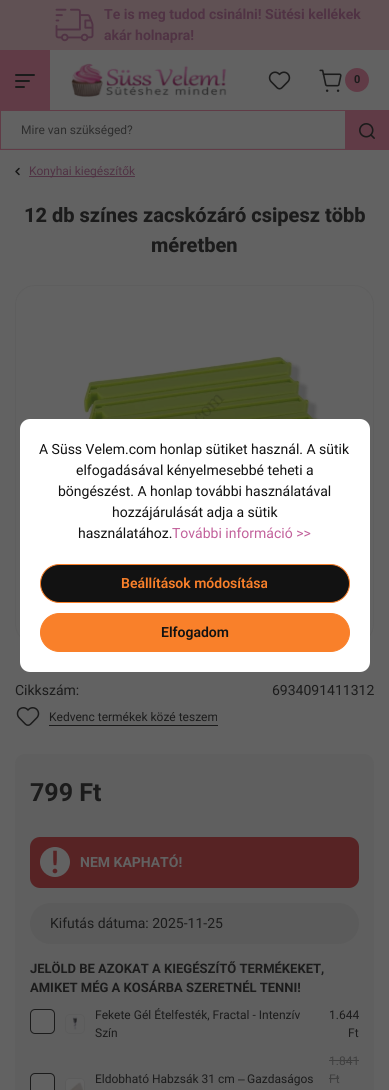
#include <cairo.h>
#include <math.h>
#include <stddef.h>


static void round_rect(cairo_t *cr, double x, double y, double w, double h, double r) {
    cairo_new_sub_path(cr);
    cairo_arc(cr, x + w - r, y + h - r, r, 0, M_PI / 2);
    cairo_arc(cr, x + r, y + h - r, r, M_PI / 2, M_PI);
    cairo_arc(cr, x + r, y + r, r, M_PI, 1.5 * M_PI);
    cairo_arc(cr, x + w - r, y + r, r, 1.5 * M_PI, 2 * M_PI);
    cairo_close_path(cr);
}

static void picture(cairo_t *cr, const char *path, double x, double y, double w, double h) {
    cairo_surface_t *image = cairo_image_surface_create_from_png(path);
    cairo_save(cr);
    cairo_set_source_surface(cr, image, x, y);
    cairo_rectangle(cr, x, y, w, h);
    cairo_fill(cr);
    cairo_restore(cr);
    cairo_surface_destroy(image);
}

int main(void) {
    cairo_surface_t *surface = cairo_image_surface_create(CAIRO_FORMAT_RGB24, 389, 1090);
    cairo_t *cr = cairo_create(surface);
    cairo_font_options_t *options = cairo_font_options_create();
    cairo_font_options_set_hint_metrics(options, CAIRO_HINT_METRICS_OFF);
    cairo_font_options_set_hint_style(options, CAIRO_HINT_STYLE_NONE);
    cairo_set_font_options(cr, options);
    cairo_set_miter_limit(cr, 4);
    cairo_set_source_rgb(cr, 0.384, 0.384, 0.384);
    cairo_paint(cr);
    cairo_set_source_rgb(cr, 0.376, 0.318, 0.329);
    cairo_rectangle(cr, 0, 0, 389, 50);
    cairo_fill(cr);
    picture(cr, "img1.png", 55, 8, 39, 34);
    cairo_select_font_face(cr, "Roboto", CAIRO_FONT_SLANT_NORMAL, CAIRO_FONT_WEIGHT_BOLD);
    cairo_set_font_size(cr, 14);
    cairo_set_source_rgb(cr, 0.314, 0.2, 0.267);
    cairo_move_to(cr, 104, 19);
    cairo_show_text(cr, "Te is meg tudod csinálni! Sütési kellékek");
    cairo_move_to(cr, 104, 40);
    cairo_show_text(cr, "akár holnapra!");
    cairo_set_source_rgb(cr, 0.376, 0.231, 0.275);
    cairo_rectangle(cr, 0, 50, 50, 60);
    cairo_fill(cr);
    picture(cr, "img2.png", 15, 74, 20, 14);
    picture(cr, "img3.png", 71, 63, 156, 34);
    picture(cr, "img4.png", 268, 71, 23, 19);
    picture(cr, "img5.png", 319, 69, 23, 23);
    cairo_arc(cr, 357, 80, 12, 0, 2 * M_PI);
    cairo_fill(cr);
    cairo_set_font_size(cr, 11);
    cairo_set_source_rgb(cr, 0.106, 0.106, 0.106);
    cairo_move_to(cr, 354, 83);
    cairo_show_text(cr, "0");
    cairo_set_source_rgb(cr, 0.369, 0.369, 0.369);
    cairo_rectangle(cr, 1, 148, 344, 1);
    cairo_fill(cr);
    cairo_rectangle(cr, 0.5, 110.5, 388, 39);
    cairo_set_source_rgb(cr, 0.376, 0.231, 0.275);
    cairo_set_line_width(cr, 1);
    cairo_stroke(cr);
    cairo_select_font_face(cr, "Roboto", CAIRO_FONT_SLANT_NORMAL, CAIRO_FONT_WEIGHT_NORMAL);
    cairo_set_font_size(cr, 12);
    cairo_set_source_rgb(cr, 0.176, 0.176, 0.176);
    cairo_move_to(cr, 21, 134);
    cairo_show_text(cr, "Mire van szükséged?");
    cairo_set_source_rgb(cr, 0.376, 0.231, 0.275);
    cairo_rectangle(cr, 345, 111, 43, 38);
    cairo_fill(cr);
    picture(cr, "img6.png", 359, 123, 16, 16);
    cairo_new_path(cr);
    cairo_move_to(cr, 19, 174.5);
    cairo_line_to(cr, 16, 171.5);
    cairo_line_to(cr, 19, 168.5);
    cairo_set_source_rgb(cr, 0.086, 0.086, 0.086);
    cairo_set_line_width(cr, 1.5);
    cairo_set_line_cap(cr, CAIRO_LINE_CAP_ROUND);
    cairo_set_line_join(cr, CAIRO_LINE_JOIN_ROUND);
    cairo_stroke(cr);
    cairo_set_source_rgb(cr, 0.314, 0.2, 0.267);
    cairo_rectangle(cr, 29, 176, 106, 1);
    cairo_fill(cr);
    cairo_move_to(cr, 29, 175);
    cairo_show_text(cr, "Konyhai kiegészítők");
    cairo_select_font_face(cr, "Roboto ExtraBold", CAIRO_FONT_SLANT_NORMAL, CAIRO_FONT_WEIGHT_NORMAL);
    cairo_set_font_size(cr, 20);
    cairo_set_source_rgb(cr, 0.106, 0.106, 0.106);
    cairo_move_to(cr, 24, 222);
    cairo_show_text(cr, "12 db színes zacskózáró csipesz több");
    cairo_move_to(cr, 151, 252);
    cairo_show_text(cr, "méretben");
    round_rect(cr, 15.5, 285.5, 358, 358, 19.5);
    cairo_set_source_rgb(cr, 0.369, 0.369, 0.369);
    cairo_set_line_width(cr, 1);
    cairo_set_line_cap(cr, CAIRO_LINE_CAP_BUTT);
    cairo_set_line_join(cr, CAIRO_LINE_JOIN_MITER);
    cairo_stroke(cr);
    picture(cr, "img7.png", 51, 356, 303, 63);
    cairo_select_font_face(cr, "Roboto", CAIRO_FONT_SLANT_NORMAL, CAIRO_FONT_WEIGHT_NORMAL);
    cairo_set_font_size(cr, 14);
    cairo_set_source_rgb(cr, 0.106, 0.106, 0.106);
    cairo_move_to(cr, 15, 695);
    cairo_show_text(cr, "Cikkszám:");
    cairo_move_to(cr, 272, 695);
    cairo_show_text(cr, "6934091411312");
    picture(cr, "img8.png", 16, 707, 24, 19);
    cairo_set_font_size(cr, 12);
    cairo_move_to(cr, 49, 721);
    cairo_show_text(cr, "Kedvenc termékek közé teszem");
    cairo_rectangle(cr, 49, 725, 169, 1);
    cairo_fill(cr);
    cairo_set_source_rgb(cr, 0.373, 0.373, 0.373);
    round_rect(cr, 15, 754, 359, 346, 10);
    cairo_fill(cr);
    cairo_select_font_face(cr, "Roboto", CAIRO_FONT_SLANT_NORMAL, CAIRO_FONT_WEIGHT_BOLD);
    cairo_set_font_size(cr, 25);
    cairo_set_source_rgb(cr, 0.106, 0.106, 0.106);
    cairo_move_to(cr, 30, 801);
    cairo_show_text(cr, "799 Ft");
    cairo_set_source_rgb(cr, 0.341, 0.137, 0.141);
    round_rect(cr, 30, 837, 329, 51, 10);
    cairo_fill(cr);
    picture(cr, "img9.png", 40, 847, 30, 30);
    cairo_set_font_size(cr, 14);
    cairo_set_source_rgb(cr, 0.384, 0.384, 0.384);
    cairo_move_to(cr, 80, 867);
    cairo_show_text(cr, "NEM KAPHATÓ!");
    cairo_set_source_rgb(cr, 0.357, 0.357, 0.357);
    round_rect(cr, 30, 903, 329, 41, 20.5);
    cairo_fill(cr);
    cairo_select_font_face(cr, "Roboto", CAIRO_FONT_SLANT_NORMAL, CAIRO_FONT_WEIGHT_NORMAL);
    cairo_set_source_rgb(cr, 0.106, 0.106, 0.106);
    cairo_move_to(cr, 50, 928);
    cairo_show_text(cr, "Kifutás dátuma: 2025-11-25");
    cairo_select_font_face(cr, "Roboto", CAIRO_FONT_SLANT_NORMAL, CAIRO_FONT_WEIGHT_BOLD);
    cairo_set_font_size(cr, 13);
    cairo_move_to(cr, 30, 973);
    cairo_show_text(cr, "JELÖLD BE AZOKAT A KIEGÉSZÍTŐ TERMÉKEKET,");
    cairo_move_to(cr, 30, 992);
    cairo_show_text(cr, "AMIKET MÉG A KOSÁRBA SZERETNÉL TENNI!");
    cairo_set_source_rgb(cr, 0.384, 0.384, 0.384);
    round_rect(cr, 30.5, 1009.5, 24, 24, 4.5);
    cairo_fill_preserve(cr);
    cairo_set_source_rgb(cr, 0.106, 0.106, 0.106);
    cairo_stroke(cr);
    round_rect(cr, 65.5, 1014.5, 19, 19, 4.5);
    cairo_set_source_rgb(cr, 0.357, 0.357, 0.357);
    cairo_stroke(cr);
    picture(cr, "img10.png", 72, 1016, 6, 14);
    cairo_select_font_face(cr, "Roboto", CAIRO_FONT_SLANT_NORMAL, CAIRO_FONT_WEIGHT_NORMAL);
    cairo_set_font_size(cr, 12);
    cairo_set_source_rgb(cr, 0.106, 0.106, 0.106);
    cairo_move_to(cr, 95, 1019);
    cairo_show_text(cr, "Fekete Gél Ételfesték, Fractal - Intenzív");
    cairo_move_to(cr, 95, 1037);
    cairo_show_text(cr, "Szín");
    cairo_move_to(cr, 329, 1019);
    cairo_show_text(cr, "1.644");
    cairo_move_to(cr, 348, 1037);
    cairo_show_text(cr, "Ft");
    cairo_set_source_rgb(cr, 0.384, 0.384, 0.384);
    round_rect(cr, 30.5, 1073.5, 24, 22, 4.5);
    cairo_fill_preserve(cr);
    cairo_set_source_rgb(cr, 0.106, 0.106, 0.106);
    cairo_stroke(cr);
    round_rect(cr, 65.5, 1078.5, 19, 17, 4.5);
    cairo_set_source_rgb(cr, 0.357, 0.357, 0.357);
    cairo_stroke(cr);
    picture(cr, "img11.png", 66, 1079, 18, 11);
    cairo_set_source_rgb(cr, 0.106, 0.106, 0.106);
    cairo_move_to(cr, 95, 1083);
    cairo_show_text(cr, "Eldobható Habzsák 31 cm");
    cairo_select_font_face(cr, "Liberation Sans", CAIRO_FONT_SLANT_NORMAL, CAIRO_FONT_WEIGHT_NORMAL);
    cairo_move_to(cr, 238, 1083);
    cairo_show_text(cr, "–");
    cairo_select_font_face(cr, "Roboto", CAIRO_FONT_SLANT_NORMAL, CAIRO_FONT_WEIGHT_NORMAL);
    cairo_move_to(cr, 247, 1083);
    cairo_show_text(cr, "Gazdaságos");
    cairo_set_source_rgb(cr, 0.247, 0.247, 0.247);
    cairo_move_to(cr, 329, 1065);
    cairo_show_text(cr, "1.841");
    cairo_rectangle(cr, 329, 1060, 30, 1);
    cairo_fill(cr);
    cairo_move_to(cr, 329, 1083);
    cairo_show_text(cr, "Ft");
    cairo_rectangle(cr, 329, 1078, 10, 1);
    cairo_fill(cr);
    cairo_set_source_rgb(cr, 1, 1, 1);
    round_rect(cr, 20, 419, 350, 253, 10);
    cairo_fill(cr);
    cairo_set_font_size(cr, 14);
    cairo_set_source_rgb(cr, 0.071, 0.071, 0.071);
    cairo_move_to(cr, 39, 454);
    cairo_show_text(cr, "A Süss Velem.com honlap sütiket használ. A sütik");
    cairo_move_to(cr, 76, 475);
    cairo_show_text(cr, "elfogadásával kényelmesebbé teheti a");
    cairo_move_to(cr, 58, 496);
    cairo_show_text(cr, "böngészést. A honlap további használatával");
    cairo_move_to(cr, 112, 517);
    cairo_show_text(cr, "hozzájárulását adja a sütik");
    cairo_move_to(cr, 78, 538);
    cairo_show_text(cr, "használatához.");
    cairo_set_source_rgb(cr, 0.761, 0.38, 0.608);
    cairo_move_to(cr, 172, 538);
    cairo_show_text(cr, "További információ >>");
    cairo_set_source_rgb(cr, 0.071, 0.071, 0.071);
    round_rect(cr, 40.5, 564.5, 309, 38, 19);
    cairo_fill_preserve(cr);
    cairo_set_source_rgb(cr, 0.976, 0.502, 0.165);
    cairo_stroke(cr);
    cairo_select_font_face(cr, "Roboto SemiBold", CAIRO_FONT_SLANT_NORMAL, CAIRO_FONT_WEIGHT_NORMAL);
    cairo_move_to(cr, 121, 588);
    cairo_show_text(cr, "Beállítások módosítása");
    round_rect(cr, 40.5, 613.5, 309, 38, 19);
    cairo_fill_preserve(cr);
    cairo_stroke(cr);
    cairo_set_source_rgb(cr, 0.071, 0.071, 0.071);
    cairo_move_to(cr, 161, 637);
    cairo_show_text(cr, "Elfogadom");
    cairo_surface_write_to_png(surface, "page.png");
    cairo_font_options_destroy(options);
    cairo_destroy(cr);
    cairo_surface_destroy(surface);
    return 0;
}
